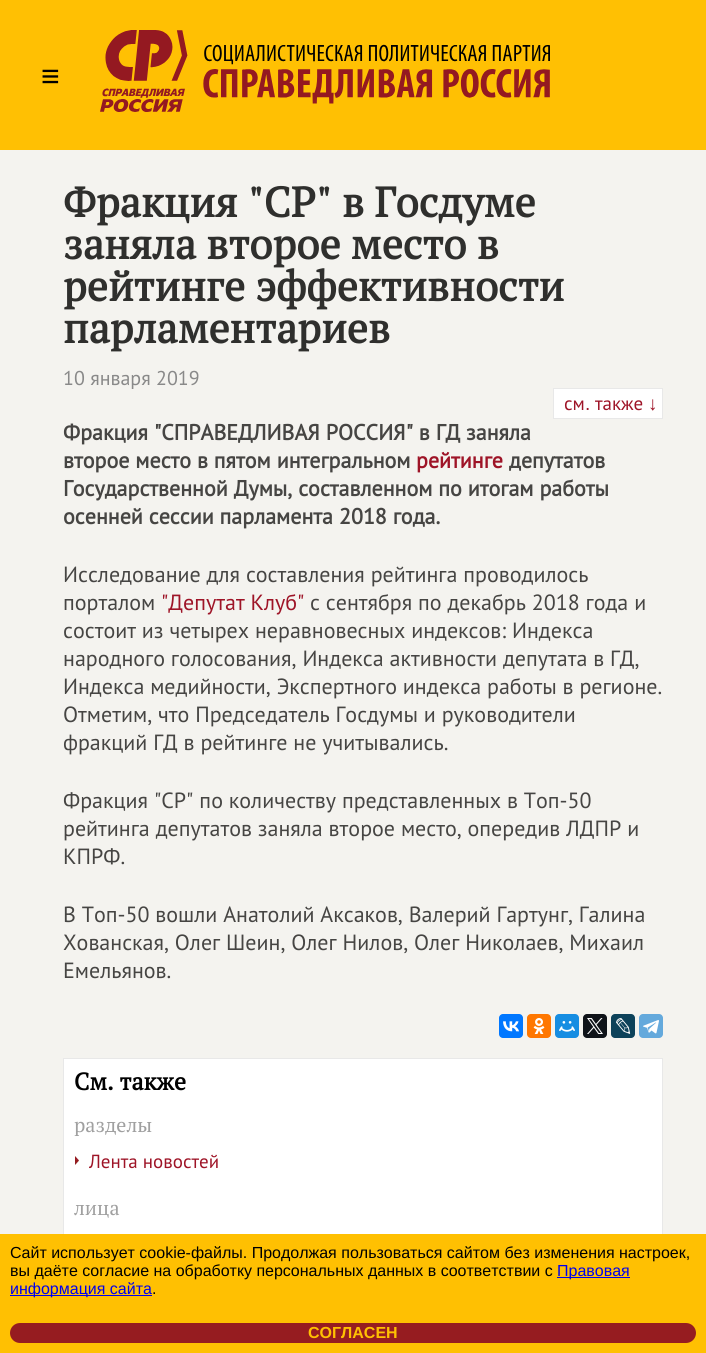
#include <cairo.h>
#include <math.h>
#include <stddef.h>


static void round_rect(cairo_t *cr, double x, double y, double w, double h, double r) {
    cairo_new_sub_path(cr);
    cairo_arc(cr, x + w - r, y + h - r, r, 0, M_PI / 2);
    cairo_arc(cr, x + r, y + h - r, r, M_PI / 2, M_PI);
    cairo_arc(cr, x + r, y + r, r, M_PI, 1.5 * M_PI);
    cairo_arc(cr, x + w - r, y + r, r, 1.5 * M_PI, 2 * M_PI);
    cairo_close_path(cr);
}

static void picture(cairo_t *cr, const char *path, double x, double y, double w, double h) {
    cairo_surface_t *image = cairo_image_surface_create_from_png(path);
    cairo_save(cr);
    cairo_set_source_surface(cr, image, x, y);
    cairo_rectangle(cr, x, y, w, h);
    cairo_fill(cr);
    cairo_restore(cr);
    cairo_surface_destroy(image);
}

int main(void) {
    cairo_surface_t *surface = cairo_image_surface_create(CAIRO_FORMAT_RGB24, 706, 1353);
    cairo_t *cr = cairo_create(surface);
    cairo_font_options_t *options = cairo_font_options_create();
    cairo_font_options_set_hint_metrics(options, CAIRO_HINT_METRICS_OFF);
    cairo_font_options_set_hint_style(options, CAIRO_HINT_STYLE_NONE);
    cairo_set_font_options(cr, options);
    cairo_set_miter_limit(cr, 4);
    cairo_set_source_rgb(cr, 0.957, 0.953, 0.937);
    cairo_paint(cr);
    cairo_set_source_rgb(cr, 1, 0.753, 0.012);
    cairo_rectangle(cr, 0, 0, 706, 150);
    cairo_fill(cr);
    cairo_select_font_face(cr, "Liberation Sans", CAIRO_FONT_SLANT_NORMAL, CAIRO_FONT_WEIGHT_NORMAL);
    cairo_set_font_size(cr, 32);
    cairo_set_source_rgb(cr, 0, 0, 0);
    cairo_move_to(cr, 41, 87);
    cairo_show_text(cr, "≡");
    picture(cr, "img1.png", 100, 30, 450, 82);
    cairo_select_font_face(cr, "PT Serif", CAIRO_FONT_SLANT_NORMAL, CAIRO_FONT_WEIGHT_BOLD);
    cairo_set_font_size(cr, 42);
    cairo_set_source_rgb(cr, 0.184, 0.184, 0.176);
    cairo_move_to(cr, 63, 217);
    cairo_show_text(cr, "Фракция \"СР\" в Госдуме");
    cairo_move_to(cr, 63, 259);
    cairo_show_text(cr, "заняла второе место в");
    cairo_move_to(cr, 63, 301);
    cairo_show_text(cr, "рейтинге эффективности");
    cairo_move_to(cr, 63, 343);
    cairo_show_text(cr, "парламентариев");
    cairo_select_font_face(cr, "PT Sans", CAIRO_FONT_SLANT_NORMAL, CAIRO_FONT_WEIGHT_NORMAL);
    cairo_set_font_size(cr, 20);
    cairo_set_source_rgb(cr, 0.537, 0.537, 0.537);
    cairo_move_to(cr, 63, 385);
    cairo_show_text(cr, "10 января 2019");
    cairo_set_source_rgb(cr, 1, 1, 1);
    cairo_rectangle(cr, 553.5, 388.5, 109, 30);
    cairo_fill_preserve(cr);
    cairo_set_source_rgb(cr, 0.91, 0.91, 0.91);
    cairo_set_line_width(cr, 1);
    cairo_stroke(cr);
    cairo_set_font_size(cr, 19);
    cairo_set_source_rgb(cr, 0.62, 0.082, 0.153);
    cairo_move_to(cr, 564, 410);
    cairo_show_text(cr, "см");
    cairo_select_font_face(cr, "Liberation Sans", CAIRO_FONT_SLANT_NORMAL, CAIRO_FONT_WEIGHT_NORMAL);
    cairo_move_to(cr, 585, 410);
    cairo_show_text(cr, ".");
    cairo_select_font_face(cr, "PT Sans", CAIRO_FONT_SLANT_NORMAL, CAIRO_FONT_WEIGHT_NORMAL);
    cairo_move_to(cr, 595, 410);
    cairo_show_text(cr, "также");
    cairo_select_font_face(cr, "Liberation Sans", CAIRO_FONT_SLANT_NORMAL, CAIRO_FONT_WEIGHT_NORMAL);
    cairo_move_to(cr, 648, 410);
    cairo_show_text(cr, "↓");
    cairo_select_font_face(cr, "PT Sans", CAIRO_FONT_SLANT_NORMAL, CAIRO_FONT_WEIGHT_BOLD);
    cairo_set_font_size(cr, 22);
    cairo_set_source_rgb(cr, 0.275, 0.271, 0.263);
    cairo_move_to(cr, 63, 440);
    cairo_show_text(cr, "Фракция \"СПРАВЕДЛИВАЯ РОССИЯ\" в ГД заняла");
    cairo_move_to(cr, 63, 468);
    cairo_show_text(cr, "второе место в пятом интегральном");
    cairo_set_source_rgb(cr, 0.62, 0.082, 0.153);
    cairo_move_to(cr, 416, 468);
    cairo_show_text(cr, "рейтинге");
    cairo_set_source_rgb(cr, 0.275, 0.271, 0.263);
    cairo_move_to(cr, 509, 468);
    cairo_show_text(cr, "депутатов");
    cairo_move_to(cr, 63, 496);
    cairo_show_text(cr, "Государственной Думы, составленном по итогам работы");
    cairo_move_to(cr, 63, 524);
    cairo_show_text(cr, "осенней сессии парламента 2018 года.");
    cairo_select_font_face(cr, "PT Sans", CAIRO_FONT_SLANT_NORMAL, CAIRO_FONT_WEIGHT_NORMAL);
    cairo_move_to(cr, 63, 582);
    cairo_show_text(cr, "Исследование для составления рейтинга проводилось");
    cairo_move_to(cr, 63, 610);
    cairo_show_text(cr, "порталом");
    cairo_set_source_rgb(cr, 0.62, 0.082, 0.153);
    cairo_move_to(cr, 161, 610);
    cairo_show_text(cr, "\"Депутат Клуб\"");
    cairo_set_source_rgb(cr, 0.275, 0.271, 0.263);
    cairo_move_to(cr, 310, 610);
    cairo_show_text(cr, "с сентября по декабрь 2018 года и");
    cairo_move_to(cr, 63, 638);
    cairo_show_text(cr, "состоит из четырех неравновесных индексов: Индекса");
    cairo_move_to(cr, 63, 666);
    cairo_show_text(cr, "народного голосования, Индекса активности депутата в ГД,");
    cairo_move_to(cr, 63, 694);
    cairo_show_text(cr, "Индекса медийности, Экспертного индекса работы в регионе.");
    cairo_move_to(cr, 63, 722);
    cairo_show_text(cr, "Отметим, что Председатель Госдумы и руководители");
    cairo_move_to(cr, 63, 750);
    cairo_show_text(cr, "фракций ГД в рейтинге не учитывались.");
    cairo_move_to(cr, 63, 808);
    cairo_show_text(cr, "Фракция \"СР\" по количеству представленных в Топ-50");
    cairo_move_to(cr, 63, 836);
    cairo_show_text(cr, "рейтинга депутатов заняла второе место, опередив ЛДПР и");
    cairo_move_to(cr, 63, 864);
    cairo_show_text(cr, "КПРФ.");
    cairo_move_to(cr, 63, 922);
    cairo_show_text(cr, "В Топ-50 вошли Анатолий Аксаков, Валерий Гартунг, Галина");
    cairo_move_to(cr, 63, 950);
    cairo_show_text(cr, "Хованская, Олег Шеин, Олег Нилов, Олег Николаев, Михаил");
    cairo_move_to(cr, 63, 978);
    cairo_show_text(cr, "Емельянов.");
    cairo_set_source_rgb(cr, 0, 0.467, 1);
    round_rect(cr, 499, 1014, 24, 24, 4);
    cairo_fill(cr);
    picture(cr, "img2.png", 503, 1021, 16, 11);
    cairo_set_source_rgb(cr, 1, 0.467, 0);
    round_rect(cr, 527, 1014, 24, 24, 4);
    cairo_fill(cr);
    picture(cr, "img3.png", 533, 1018, 12, 16);
    cairo_set_source_rgb(cr, 0.086, 0.553, 0.886);
    round_rect(cr, 555, 1014, 24, 24, 4);
    cairo_fill(cr);
    picture(cr, "img4.png", 559, 1021, 16, 11);
    cairo_set_source_rgb(cr, 0.059, 0.078, 0.098);
    round_rect(cr, 583, 1014, 24, 24, 4);
    cairo_fill(cr);
    picture(cr, "img5.png", 587, 1018, 16, 16);
    cairo_set_source_rgb(cr, 0.051, 0.259, 0.353);
    round_rect(cr, 611, 1014, 24, 24, 4);
    cairo_fill(cr);
    picture(cr, "img6.png", 616, 1018, 15, 16);
    cairo_set_source_rgb(cr, 0.392, 0.663, 0.863);
    round_rect(cr, 639, 1014, 24, 24, 4);
    cairo_fill(cr);
    picture(cr, "img7.png", 643, 1020, 16, 14);
    cairo_set_source_rgb(cr, 1, 1, 1);
    cairo_rectangle(cr, 64, 1059, 598, 175);
    cairo_fill(cr);
    cairo_rectangle(cr, 63.5, 1058.5, 599, 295);
    cairo_set_source_rgb(cr, 0.91, 0.91, 0.91);
    cairo_stroke(cr);
    cairo_select_font_face(cr, "PT Serif", CAIRO_FONT_SLANT_NORMAL, CAIRO_FONT_WEIGHT_BOLD);
    cairo_set_font_size(cr, 24);
    cairo_set_source_rgb(cr, 0, 0, 0);
    cairo_move_to(cr, 74, 1090);
    cairo_show_text(cr, "См. также");
    cairo_select_font_face(cr, "PT Serif", CAIRO_FONT_SLANT_NORMAL, CAIRO_FONT_WEIGHT_NORMAL);
    cairo_set_font_size(cr, 20);
    cairo_set_source_rgb(cr, 0.627, 0.627, 0.627);
    cairo_move_to(cr, 74, 1132);
    cairo_show_text(cr, "разделы");
    picture(cr, "img8.png", 75, 1156, 4, 9);
    cairo_select_font_face(cr, "PT Sans", CAIRO_FONT_SLANT_NORMAL, CAIRO_FONT_WEIGHT_NORMAL);
    cairo_set_font_size(cr, 19);
    cairo_set_source_rgb(cr, 0.62, 0.082, 0.153);
    cairo_move_to(cr, 89, 1168);
    cairo_show_text(cr, "Лента новостей");
    cairo_select_font_face(cr, "PT Serif", CAIRO_FONT_SLANT_NORMAL, CAIRO_FONT_WEIGHT_NORMAL);
    cairo_set_font_size(cr, 20);
    cairo_set_source_rgb(cr, 0.627, 0.627, 0.627);
    cairo_move_to(cr, 74, 1215);
    cairo_show_text(cr, "лица");
    cairo_set_source_rgb(cr, 1, 0.753, 0.008);
    cairo_rectangle(cr, 0, 1234, 706, 119);
    cairo_fill(cr);
    cairo_select_font_face(cr, "Liberation Sans", CAIRO_FONT_SLANT_NORMAL, CAIRO_FONT_WEIGHT_NORMAL);
    cairo_set_font_size(cr, 16);
    cairo_set_source_rgb(cr, 0, 0, 0);
    cairo_move_to(cr, 10, 1258);
    cairo_show_text(cr, "Сайт использует cookie-файлы. Продолжая пользоваться сайтом без изменения настроек,");
    cairo_move_to(cr, 10, 1276);
    cairo_show_text(cr, "вы даёте согласие на обработку персональных данных в соответствии с");
    cairo_set_source_rgb(cr, 0, 0, 0.933);
    cairo_rectangle(cr, 557, 1277, 73, 1);
    cairo_fill(cr);
    cairo_move_to(cr, 557, 1276);
    cairo_show_text(cr, "Правовая");
    cairo_rectangle(cr, 10, 1295, 142, 1);
    cairo_fill(cr);
    cairo_move_to(cr, 10, 1294);
    cairo_show_text(cr, "информация сайта");
    cairo_set_source_rgb(cr, 0, 0, 0);
    cairo_move_to(cr, 152, 1294);
    cairo_show_text(cr, ".");
    cairo_set_source_rgb(cr, 0.588, 0.11, 0.125);
    round_rect(cr, 10, 1323, 686, 20, 10);
    cairo_fill(cr);
    cairo_select_font_face(cr, "Liberation Sans", CAIRO_FONT_SLANT_NORMAL, CAIRO_FONT_WEIGHT_BOLD);
    cairo_set_source_rgb(cr, 1, 0.753, 0.008);
    cairo_move_to(cr, 308, 1338);
    cairo_show_text(cr, "СОГЛАСЕН");
    cairo_surface_write_to_png(surface, "page.png");
    cairo_font_options_destroy(options);
    cairo_destroy(cr);
    cairo_surface_destroy(surface);
    return 0;
}
